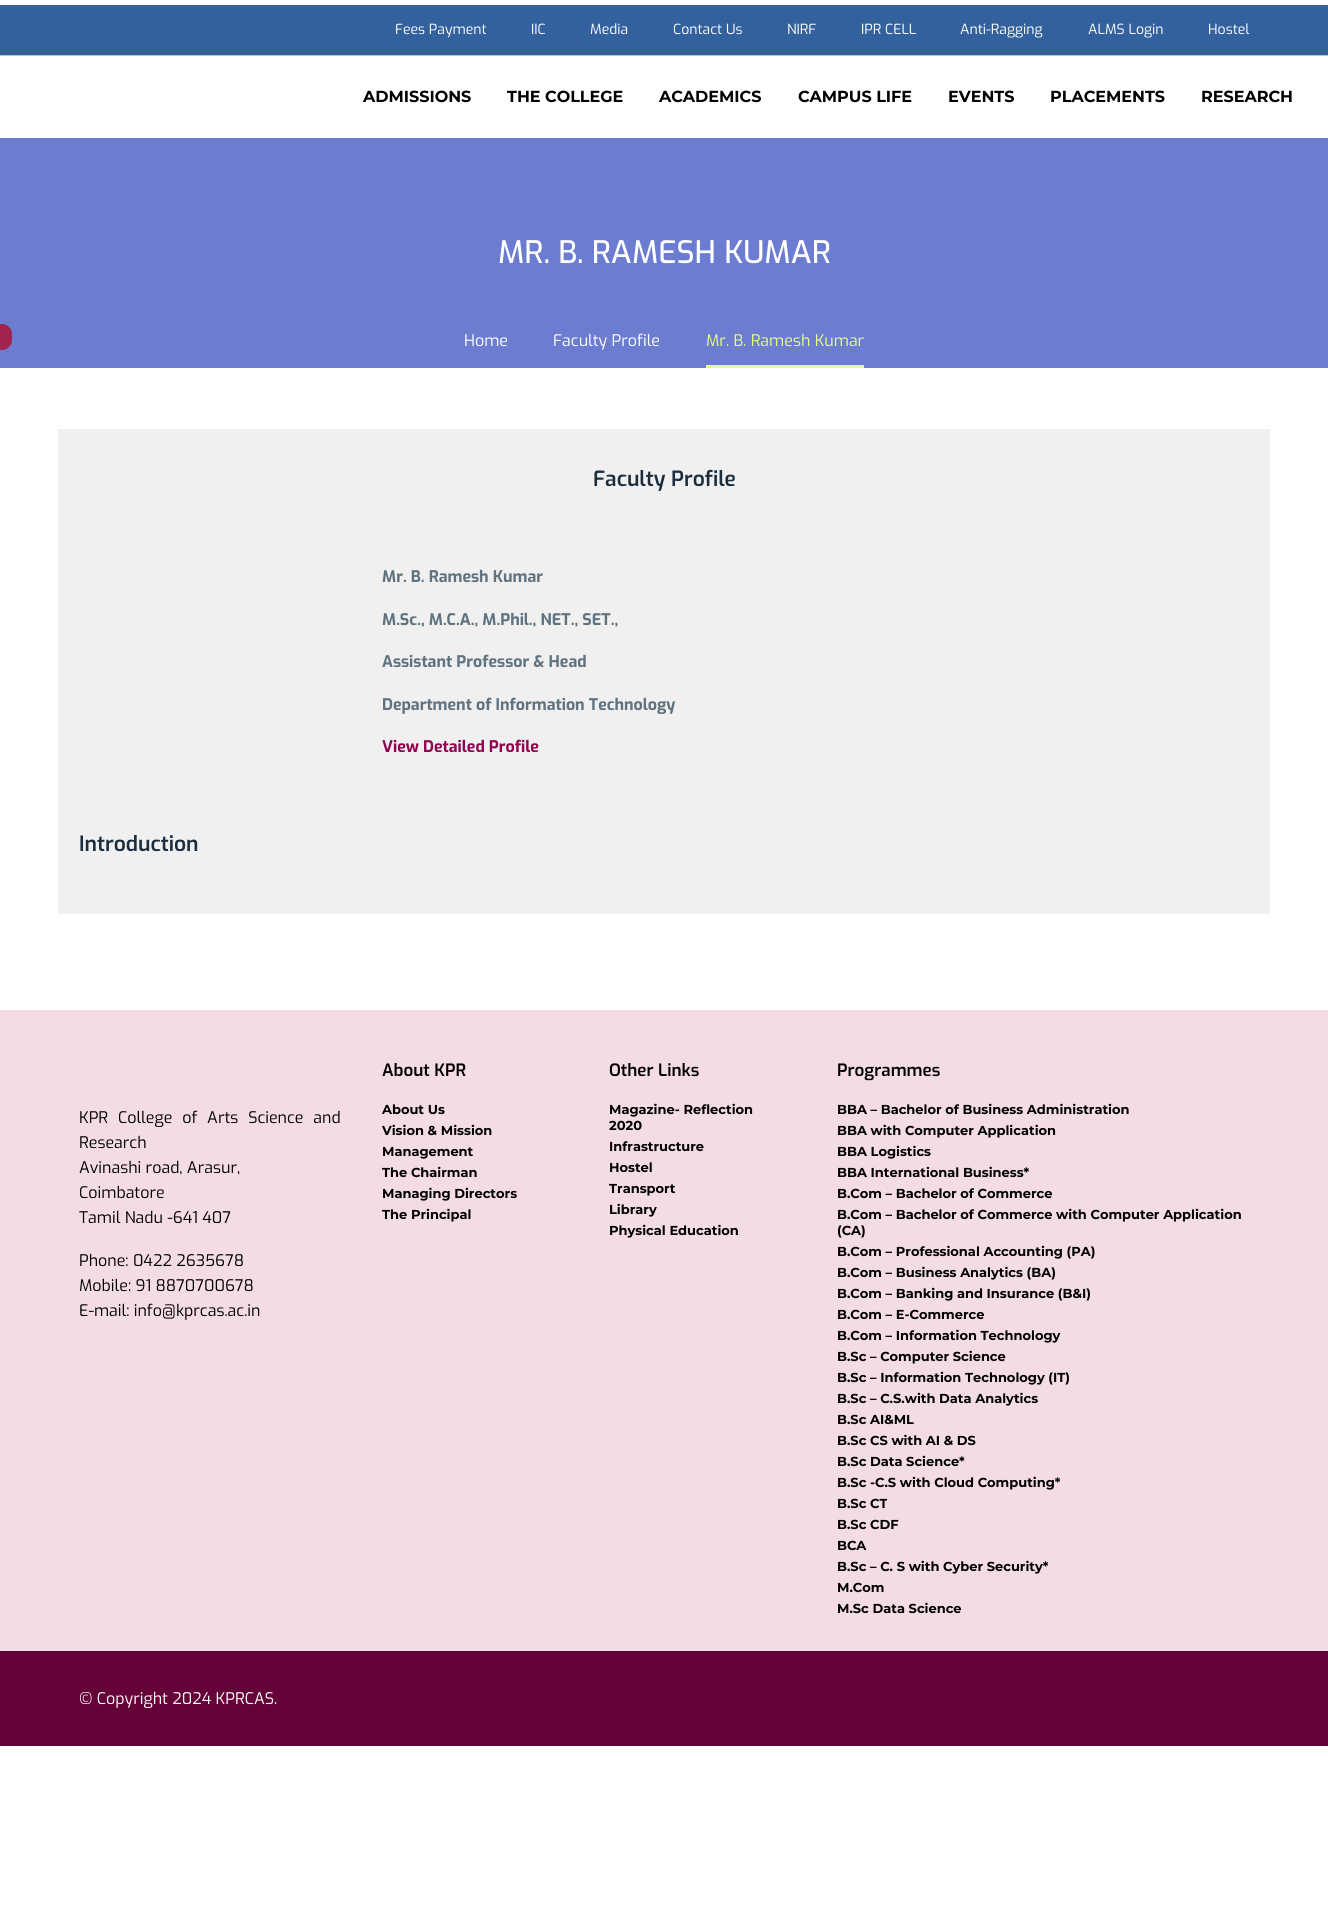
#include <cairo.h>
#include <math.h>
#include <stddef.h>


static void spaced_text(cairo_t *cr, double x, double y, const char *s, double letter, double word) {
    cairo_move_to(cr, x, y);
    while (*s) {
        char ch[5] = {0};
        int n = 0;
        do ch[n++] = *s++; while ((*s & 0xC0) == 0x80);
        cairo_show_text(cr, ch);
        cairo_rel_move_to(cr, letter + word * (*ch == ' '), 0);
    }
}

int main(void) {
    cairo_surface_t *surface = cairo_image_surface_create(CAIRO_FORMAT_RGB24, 1328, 1928);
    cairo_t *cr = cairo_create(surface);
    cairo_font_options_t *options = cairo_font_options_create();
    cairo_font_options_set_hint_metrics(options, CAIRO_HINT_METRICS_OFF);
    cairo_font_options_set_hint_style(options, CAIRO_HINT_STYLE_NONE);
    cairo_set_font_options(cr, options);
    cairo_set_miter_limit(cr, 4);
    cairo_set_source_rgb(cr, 1, 1, 1);
    cairo_paint(cr);
    cairo_set_source_rgb(cr, 0.424, 0.486, 0.816);
    cairo_rectangle(cr, 0, 138, 1328, 230);
    cairo_fill(cr);
    cairo_set_source_rgb(cr, 0.627, 0.141, 0.306);
    cairo_new_path(cr);
    cairo_move_to(cr, -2, 350);
    cairo_line_to(cr, -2, 324);
    cairo_line_to(cr, 2, 324);
    cairo_curve_to(cr, 7.5, 324, 12, 328.5, 12, 334);
    cairo_line_to(cr, 12, 340);
    cairo_curve_to(cr, 12, 345.5, 7.5, 350, 2, 350);
    cairo_close_path(cr);
    cairo_fill(cr);
    cairo_set_source_rgba(cr, 0.114, 0.314, 0.573, 0.9);
    cairo_rectangle(cr, 0, 5, 1328, 50);
    cairo_fill(cr);
    cairo_set_source_rgb(cr, 0.961, 0.808, 0);
    cairo_rectangle(cr, 0, 55, 1328, 1);
    cairo_fill(cr);
    cairo_select_font_face(cr, "Exo", CAIRO_FONT_SLANT_NORMAL, CAIRO_FONT_WEIGHT_NORMAL);
    cairo_set_font_size(cr, 14);
    cairo_set_source_rgb(cr, 1, 1, 1);
    cairo_move_to(cr, 395, 34);
    cairo_show_text(cr, "Fees Payment");
    cairo_move_to(cr, 531, 34);
    cairo_show_text(cr, "IIC");
    cairo_move_to(cr, 590, 34);
    cairo_show_text(cr, "Media");
    cairo_move_to(cr, 673, 34);
    cairo_show_text(cr, "Contact Us");
    cairo_move_to(cr, 787, 34);
    cairo_show_text(cr, "NIRF");
    cairo_move_to(cr, 861, 34);
    cairo_show_text(cr, "IPR CELL");
    cairo_move_to(cr, 960, 34);
    cairo_show_text(cr, "Anti-Ragging");
    cairo_move_to(cr, 1088, 34);
    cairo_show_text(cr, "ALMS Login");
    cairo_move_to(cr, 1208, 34);
    cairo_show_text(cr, "Hostel");
    cairo_select_font_face(cr, "Montserrat", CAIRO_FONT_SLANT_NORMAL, CAIRO_FONT_WEIGHT_BOLD);
    cairo_set_font_size(cr, 16);
    cairo_set_source_rgb(cr, 0, 0, 0);
    cairo_move_to(cr, 363, 102);
    cairo_show_text(cr, "ADMISSIONS");
    cairo_move_to(cr, 507, 102);
    cairo_show_text(cr, "THE COLLEGE");
    cairo_move_to(cr, 659, 102);
    cairo_show_text(cr, "ACADEMICS");
    cairo_move_to(cr, 798, 102);
    cairo_show_text(cr, "CAMPUS LIFE");
    cairo_move_to(cr, 948, 102);
    cairo_show_text(cr, "EVENTS");
    cairo_move_to(cr, 1050, 102);
    cairo_show_text(cr, "PLACEMENTS");
    cairo_move_to(cr, 1201, 102);
    cairo_show_text(cr, "RESEARCH");
    cairo_select_font_face(cr, "Exo Medium", CAIRO_FONT_SLANT_NORMAL, CAIRO_FONT_WEIGHT_NORMAL);
    cairo_set_font_size(cr, 31);
    cairo_set_source_rgb(cr, 1, 1, 1);
    cairo_move_to(cr, 498, 263);
    cairo_show_text(cr, "MR. B. RAMESH KUMAR");
    cairo_select_font_face(cr, "Exo", CAIRO_FONT_SLANT_NORMAL, CAIRO_FONT_WEIGHT_NORMAL);
    cairo_set_font_size(cr, 16);
    cairo_move_to(cr, 464, 346);
    cairo_show_text(cr, "Home");
    cairo_move_to(cr, 553, 346);
    cairo_show_text(cr, "Faculty Profile");
    cairo_set_source_rgb(cr, 0.906, 1, 0.537);
    cairo_rectangle(cr, 706, 365, 158, 3);
    cairo_fill(cr);
    cairo_move_to(cr, 706, 346);
    cairo_show_text(cr, "Mr. B. Ramesh Kumar");
    cairo_set_source_rgb(cr, 0.941, 0.941, 0.941);
    cairo_rectangle(cr, 58, 429, 1212, 485);
    cairo_fill(cr);
    cairo_select_font_face(cr, "Exo SemiBold", CAIRO_FONT_SLANT_NORMAL, CAIRO_FONT_WEIGHT_NORMAL);
    cairo_set_font_size(cr, 21);
    cairo_set_source_rgb(cr, 0.11, 0.18, 0.239);
    cairo_move_to(cr, 593, 486);
    cairo_show_text(cr, "Faculty Profile");
    cairo_select_font_face(cr, "Exo", CAIRO_FONT_SLANT_NORMAL, CAIRO_FONT_WEIGHT_BOLD);
    cairo_set_font_size(cr, 16);
    cairo_set_source_rgb(cr, 0.373, 0.447, 0.498);
    cairo_move_to(cr, 382, 582);
    cairo_show_text(cr, "Mr. B. Ramesh Kumar");
    cairo_move_to(cr, 382, 625);
    cairo_show_text(cr, "M.Sc., M.C.A., M.Phil., NET., SET.,");
    cairo_move_to(cr, 382, 667);
    cairo_show_text(cr, "Assistant Professor & Head");
    cairo_move_to(cr, 382, 710);
    cairo_show_text(cr, "Department of Information Technology");
    cairo_set_source_rgb(cr, 0.569, 0.012, 0.314);
    cairo_move_to(cr, 382, 752);
    cairo_show_text(cr, "View Detailed Profile");
    cairo_select_font_face(cr, "Exo SemiBold", CAIRO_FONT_SLANT_NORMAL, CAIRO_FONT_WEIGHT_NORMAL);
    cairo_set_font_size(cr, 21);
    cairo_set_source_rgb(cr, 0.11, 0.18, 0.239);
    cairo_move_to(cr, 79, 851);
    cairo_show_text(cr, "Introduction");
    cairo_set_source_rgb(cr, 0.957, 0.863, 0.902);
    cairo_rectangle(cr, 0, 1010, 1328, 641);
    cairo_fill(cr);
    cairo_select_font_face(cr, "Exo", CAIRO_FONT_SLANT_NORMAL, CAIRO_FONT_WEIGHT_NORMAL);
    cairo_set_font_size(cr, 16);
    cairo_set_source_rgb(cr, 0, 0, 0);
    spaced_text(cr, 79, 1123, "KPR College of Arts Science and", 0, 5.5);
    cairo_move_to(cr, 79, 1148);
    cairo_show_text(cr, "Research");
    cairo_move_to(cr, 79, 1173);
    cairo_show_text(cr, "Avinashi road, Arasur,");
    cairo_move_to(cr, 79, 1198);
    cairo_show_text(cr, "Coimbatore");
    cairo_move_to(cr, 79, 1223);
    cairo_show_text(cr, "Tamil Nadu -641 407");
    cairo_move_to(cr, 79, 1266);
    cairo_show_text(cr, "Phone: 0422 2635678");
    cairo_move_to(cr, 79, 1291);
    cairo_show_text(cr, "Mobile: 91 8870700678");
    cairo_move_to(cr, 79, 1316);
    cairo_show_text(cr, "E-mail: info@kprcas.ac.in");
    cairo_select_font_face(cr, "Exo SemiBold", CAIRO_FONT_SLANT_NORMAL, CAIRO_FONT_WEIGHT_NORMAL);
    cairo_set_font_size(cr, 17);
    cairo_move_to(cr, 382, 1076);
    cairo_show_text(cr, "About KPR");
    cairo_select_font_face(cr, "Montserrat", CAIRO_FONT_SLANT_NORMAL, CAIRO_FONT_WEIGHT_BOLD);
    cairo_set_font_size(cr, 13);
    cairo_move_to(cr, 382, 1114);
    cairo_show_text(cr, "About Us");
    cairo_move_to(cr, 382, 1135);
    cairo_show_text(cr, "Vision & Mission");
    cairo_move_to(cr, 382, 1156);
    cairo_show_text(cr, "Management");
    cairo_move_to(cr, 382, 1177);
    cairo_show_text(cr, "The Chairman");
    cairo_move_to(cr, 382, 1198);
    cairo_show_text(cr, "Managing Directors");
    cairo_move_to(cr, 382, 1219);
    cairo_show_text(cr, "The Principal");
    cairo_select_font_face(cr, "Exo SemiBold", CAIRO_FONT_SLANT_NORMAL, CAIRO_FONT_WEIGHT_NORMAL);
    cairo_set_font_size(cr, 17);
    cairo_move_to(cr, 609, 1076);
    cairo_show_text(cr, "Other Links");
    cairo_select_font_face(cr, "Montserrat", CAIRO_FONT_SLANT_NORMAL, CAIRO_FONT_WEIGHT_BOLD);
    cairo_set_font_size(cr, 13);
    cairo_move_to(cr, 609, 1114);
    cairo_show_text(cr, "Magazine- Reflection");
    cairo_move_to(cr, 609, 1130);
    cairo_show_text(cr, "2020");
    cairo_move_to(cr, 609, 1151);
    cairo_show_text(cr, "Infrastructure");
    cairo_move_to(cr, 609, 1172);
    cairo_show_text(cr, "Hostel");
    cairo_move_to(cr, 609, 1193);
    cairo_show_text(cr, "Transport");
    cairo_move_to(cr, 609, 1214);
    cairo_show_text(cr, "Library");
    cairo_move_to(cr, 609, 1235);
    cairo_show_text(cr, "Physical Education");
    cairo_select_font_face(cr, "Exo SemiBold", CAIRO_FONT_SLANT_NORMAL, CAIRO_FONT_WEIGHT_NORMAL);
    cairo_set_font_size(cr, 17);
    cairo_move_to(cr, 837, 1076);
    cairo_show_text(cr, "Programmes");
    cairo_select_font_face(cr, "Montserrat", CAIRO_FONT_SLANT_NORMAL, CAIRO_FONT_WEIGHT_BOLD);
    cairo_set_font_size(cr, 13);
    cairo_move_to(cr, 837, 1114);
    cairo_show_text(cr, "BBA – Bachelor of Business Administration");
    cairo_move_to(cr, 837, 1135);
    cairo_show_text(cr, "BBA with Computer Application");
    cairo_move_to(cr, 837, 1156);
    cairo_show_text(cr, "BBA Logistics");
    cairo_move_to(cr, 837, 1177);
    cairo_show_text(cr, "BBA International Business*");
    cairo_move_to(cr, 837, 1198);
    cairo_show_text(cr, "B.Com – Bachelor of Commerce");
    cairo_move_to(cr, 837, 1219);
    cairo_show_text(cr, "B.Com – Bachelor of Commerce with Computer Application");
    cairo_move_to(cr, 837, 1235);
    cairo_show_text(cr, "(CA)");
    cairo_move_to(cr, 837, 1256);
    cairo_show_text(cr, "B.Com – Professional Accounting (PA)");
    cairo_move_to(cr, 837, 1277);
    cairo_show_text(cr, "B.Com – Business Analytics (BA)");
    cairo_move_to(cr, 837, 1298);
    cairo_show_text(cr, "B.Com – Banking and Insurance (B&I)");
    cairo_move_to(cr, 837, 1319);
    cairo_show_text(cr, "B.Com – E-Commerce");
    cairo_move_to(cr, 837, 1340);
    cairo_show_text(cr, "B.Com – Information Technology");
    cairo_move_to(cr, 837, 1361);
    cairo_show_text(cr, "B.Sc – Computer Science");
    cairo_move_to(cr, 837, 1382);
    cairo_show_text(cr, "B.Sc – Information Technology (IT)");
    cairo_move_to(cr, 837, 1403);
    cairo_show_text(cr, "B.Sc – C.S.with Data Analytics");
    cairo_move_to(cr, 837, 1424);
    cairo_show_text(cr, "B.Sc AI&ML");
    cairo_move_to(cr, 837, 1445);
    cairo_show_text(cr, "B.Sc CS with AI & DS");
    cairo_move_to(cr, 837, 1466);
    cairo_show_text(cr, "B.Sc Data Science*");
    cairo_move_to(cr, 837, 1487);
    cairo_show_text(cr, "B.Sc -C.S with Cloud Computing*");
    cairo_move_to(cr, 837, 1508);
    cairo_show_text(cr, "B.Sc CT");
    cairo_move_to(cr, 837, 1529);
    cairo_show_text(cr, "B.Sc CDF");
    cairo_move_to(cr, 837, 1550);
    cairo_show_text(cr, "BCA");
    cairo_move_to(cr, 837, 1571);
    cairo_show_text(cr, "B.Sc – C. S with Cyber Security*");
    cairo_move_to(cr, 837, 1592);
    cairo_show_text(cr, "M.Com");
    cairo_move_to(cr, 837, 1613);
    cairo_show_text(cr, "M.Sc Data Science");
    cairo_set_source_rgb(cr, 0.396, 0.008, 0.22);
    cairo_rectangle(cr, 0, 1651, 1328, 95);
    cairo_fill(cr);
    cairo_select_font_face(cr, "Exo", CAIRO_FONT_SLANT_NORMAL, CAIRO_FONT_WEIGHT_NORMAL);
    cairo_set_font_size(cr, 16);
    cairo_set_source_rgb(cr, 1, 1, 1);
    cairo_move_to(cr, 79, 1704);
    cairo_show_text(cr, "© Copyright 2024 KPRCAS.");
    cairo_surface_write_to_png(surface, "page.png");
    cairo_font_options_destroy(options);
    cairo_destroy(cr);
    cairo_surface_destroy(surface);
    return 0;
}
